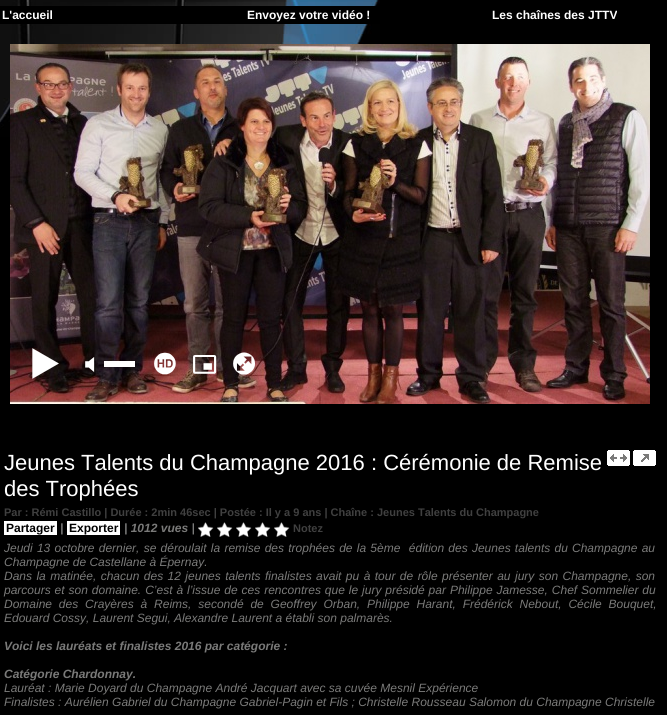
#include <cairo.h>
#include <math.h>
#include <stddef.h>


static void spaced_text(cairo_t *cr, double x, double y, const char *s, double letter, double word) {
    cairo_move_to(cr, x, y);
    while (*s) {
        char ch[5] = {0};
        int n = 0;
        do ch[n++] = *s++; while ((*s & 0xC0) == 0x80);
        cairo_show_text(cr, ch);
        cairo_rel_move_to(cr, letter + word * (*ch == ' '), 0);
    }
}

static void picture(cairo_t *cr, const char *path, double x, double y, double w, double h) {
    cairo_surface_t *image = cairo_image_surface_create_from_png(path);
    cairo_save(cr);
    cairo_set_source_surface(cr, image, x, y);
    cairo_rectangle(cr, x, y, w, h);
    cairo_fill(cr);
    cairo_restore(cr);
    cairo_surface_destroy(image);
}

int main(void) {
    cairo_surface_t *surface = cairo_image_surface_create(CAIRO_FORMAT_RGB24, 667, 715);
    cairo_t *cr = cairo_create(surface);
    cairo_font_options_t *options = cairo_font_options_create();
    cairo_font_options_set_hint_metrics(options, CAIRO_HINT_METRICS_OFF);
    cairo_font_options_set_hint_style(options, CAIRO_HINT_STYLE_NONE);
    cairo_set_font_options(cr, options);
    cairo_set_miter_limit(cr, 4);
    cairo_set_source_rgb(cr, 0, 0, 0);
    cairo_paint(cr);
    picture(cr, "img1.png", 0, 0, 380, 137);
    cairo_set_source_rgb(cr, 0, 0, 0);
    cairo_rectangle(cr, 0, 6, 380, 18);
    cairo_fill(cr);
    cairo_select_font_face(cr, "Liberation Sans", CAIRO_FONT_SLANT_NORMAL, CAIRO_FONT_WEIGHT_BOLD);
    cairo_set_font_size(cr, 12);
    cairo_set_source_rgb(cr, 1, 1, 1);
    cairo_move_to(cr, 2, 19);
    cairo_show_text(cr, "L'accueil");
    cairo_move_to(cr, 247, 19);
    cairo_show_text(cr, "Envoyez votre vidéo !");
    cairo_move_to(cr, 492, 19);
    cairo_show_text(cr, "Les chaînes des JTTV");
    picture(cr, "img2.png", 10, 44, 640, 360);
    cairo_select_font_face(cr, "Liberation Sans", CAIRO_FONT_SLANT_NORMAL, CAIRO_FONT_WEIGHT_NORMAL);
    cairo_set_font_size(cr, 22);
    cairo_move_to(cr, 4, 470);
    cairo_show_text(cr, "Jeunes Talents du Champagne 2016 : Cérémonie de Remise");
    cairo_move_to(cr, 4, 496);
    cairo_show_text(cr, "des Trophées");
    picture(cr, "img3.png", 607, 450, 23, 16);
    picture(cr, "img4.png", 633, 450, 23, 16);
    cairo_select_font_face(cr, "Liberation Sans", CAIRO_FONT_SLANT_NORMAL, CAIRO_FONT_WEIGHT_BOLD);
    cairo_set_font_size(cr, 11);
    cairo_set_source_rgb(cr, 0.251, 0.251, 0.251);
    cairo_move_to(cr, 4, 516);
    cairo_show_text(cr, "Par : Rémi Castillo | Durée : 2min 46sec | Postée : Il y a 9 ans | Chaîne : Jeunes Talents du Champagne");
    cairo_set_source_rgb(cr, 1, 1, 1);
    cairo_rectangle(cr, 4, 521, 53, 14);
    cairo_fill(cr);
    cairo_set_font_size(cr, 12);
    cairo_set_source_rgb(cr, 0, 0, 0);
    cairo_move_to(cr, 6, 532);
    cairo_show_text(cr, "Partager");
    cairo_select_font_face(cr, "Liberation Sans", CAIRO_FONT_SLANT_ITALIC, CAIRO_FONT_WEIGHT_BOLD);
    cairo_set_source_rgb(cr, 0.478, 0.478, 0.475);
    cairo_move_to(cr, 60, 532);
    cairo_show_text(cr, "|");
    cairo_set_source_rgb(cr, 1, 1, 1);
    cairo_rectangle(cr, 67, 521, 53, 14);
    cairo_fill(cr);
    cairo_select_font_face(cr, "Liberation Sans", CAIRO_FONT_SLANT_NORMAL, CAIRO_FONT_WEIGHT_BOLD);
    cairo_set_source_rgb(cr, 0, 0, 0);
    cairo_move_to(cr, 69, 532);
    cairo_show_text(cr, "Exporter");
    cairo_select_font_face(cr, "Liberation Sans", CAIRO_FONT_SLANT_ITALIC, CAIRO_FONT_WEIGHT_BOLD);
    cairo_set_source_rgb(cr, 0.478, 0.478, 0.475);
    cairo_move_to(cr, 124, 532);
    cairo_show_text(cr, "| 1012 vues |");
    picture(cr, "img5.png", 198, 522, 16, 15);
    picture(cr, "img5.png", 217, 522, 16, 15);
    picture(cr, "img5.png", 236, 522, 16, 15);
    picture(cr, "img5.png", 255, 522, 16, 15);
    picture(cr, "img5.png", 274, 522, 16, 15);
    cairo_select_font_face(cr, "Liberation Sans", CAIRO_FONT_SLANT_NORMAL, CAIRO_FONT_WEIGHT_BOLD);
    cairo_set_font_size(cr, 11);
    cairo_set_source_rgb(cr, 0.251, 0.251, 0.251);
    cairo_move_to(cr, 293, 532);
    cairo_show_text(cr, "Notez");
    cairo_select_font_face(cr, "Liberation Sans", CAIRO_FONT_SLANT_ITALIC, CAIRO_FONT_WEIGHT_NORMAL);
    cairo_set_font_size(cr, 12);
    cairo_set_source_rgb(cr, 0.478, 0.478, 0.475);
    spaced_text(cr, 4, 552, "Jeudi 13 octobre dernier, se déroulait la remise des trophées de la 5ème  édition des Jeunes talents du Champagne au", 0, 0.9);
    cairo_move_to(cr, 4, 566);
    cairo_show_text(cr, "Champagne de Castellane à Épernay.");
    spaced_text(cr, 4, 580, "Dans la matinée, chacun des 12 jeunes talents finalistes avait pu à tour de rôle présenter au jury son Champagne, son", 0, 1.1);
    spaced_text(cr, 4, 594, "parcours et son domaine. C’est à l’issue de ces rencontres que le jury présidé par Philippe Jamesse, Chef Sommelier du", 0, 0.6);
    spaced_text(cr, 4, 608, "Domaine des Crayères à Reims, secondé de Geoffrey Orban, Philippe Harant, Frédérick Nebout, Cécile Bouquet,", 0, 3.5);
    cairo_move_to(cr, 4, 622);
    cairo_show_text(cr, "Edouard Cossy, Laurent Segui, Alexandre Laurent a établi son palmarès.");
    cairo_select_font_face(cr, "Liberation Sans", CAIRO_FONT_SLANT_ITALIC, CAIRO_FONT_WEIGHT_BOLD);
    cairo_move_to(cr, 4, 650);
    cairo_show_text(cr, "Voici les lauréats et finalistes 2016 par catégorie :");
    cairo_move_to(cr, 4, 678);
    cairo_show_text(cr, "Catégorie Chardonnay.");
    cairo_select_font_face(cr, "Liberation Sans", CAIRO_FONT_SLANT_ITALIC, CAIRO_FONT_WEIGHT_NORMAL);
    cairo_move_to(cr, 4, 692);
    cairo_show_text(cr, "Lauréat : Marie Doyard du Champagne André Jacquart avec sa cuvée Mesnil Expérience");
    cairo_move_to(cr, 4, 706);
    cairo_show_text(cr, "Finalistes : Aurélien Gabriel du Champagne Gabriel-Pagin et Fils ; Christelle Rousseau Salomon du Champagne Christelle");
    cairo_surface_write_to_png(surface, "page.png");
    cairo_font_options_destroy(options);
    cairo_destroy(cr);
    cairo_surface_destroy(surface);
    return 0;
}
